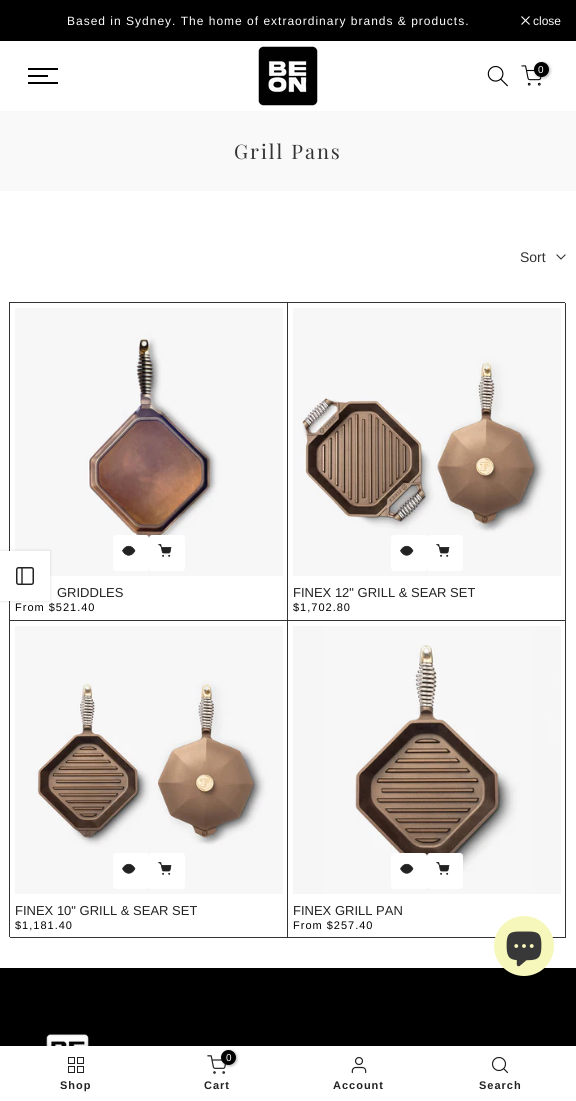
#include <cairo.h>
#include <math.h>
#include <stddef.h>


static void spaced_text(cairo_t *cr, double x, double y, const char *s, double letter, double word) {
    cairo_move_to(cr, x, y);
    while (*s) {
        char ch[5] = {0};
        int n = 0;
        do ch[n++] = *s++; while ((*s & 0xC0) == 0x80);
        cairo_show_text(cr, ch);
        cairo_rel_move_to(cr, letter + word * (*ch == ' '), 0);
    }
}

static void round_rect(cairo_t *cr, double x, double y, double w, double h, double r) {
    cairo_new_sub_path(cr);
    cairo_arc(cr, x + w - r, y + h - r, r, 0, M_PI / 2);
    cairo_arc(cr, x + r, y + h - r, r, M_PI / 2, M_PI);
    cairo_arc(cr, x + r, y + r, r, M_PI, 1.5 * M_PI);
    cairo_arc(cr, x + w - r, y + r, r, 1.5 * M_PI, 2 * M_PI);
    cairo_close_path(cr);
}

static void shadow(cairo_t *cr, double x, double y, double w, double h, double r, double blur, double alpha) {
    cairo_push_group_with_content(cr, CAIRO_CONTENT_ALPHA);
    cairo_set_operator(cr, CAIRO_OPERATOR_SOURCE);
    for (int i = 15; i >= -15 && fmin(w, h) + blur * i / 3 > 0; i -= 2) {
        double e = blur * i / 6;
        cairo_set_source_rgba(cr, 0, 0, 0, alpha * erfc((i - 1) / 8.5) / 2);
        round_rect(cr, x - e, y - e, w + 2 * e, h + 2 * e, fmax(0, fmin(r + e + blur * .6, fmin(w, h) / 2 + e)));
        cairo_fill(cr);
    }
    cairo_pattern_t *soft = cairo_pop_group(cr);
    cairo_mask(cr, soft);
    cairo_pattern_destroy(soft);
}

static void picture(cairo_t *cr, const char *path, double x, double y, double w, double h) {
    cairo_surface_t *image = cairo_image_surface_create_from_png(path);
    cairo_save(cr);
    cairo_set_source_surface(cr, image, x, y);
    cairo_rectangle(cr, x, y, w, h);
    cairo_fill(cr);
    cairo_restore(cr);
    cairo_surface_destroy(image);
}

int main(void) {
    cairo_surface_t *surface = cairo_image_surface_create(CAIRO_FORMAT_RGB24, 576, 1101);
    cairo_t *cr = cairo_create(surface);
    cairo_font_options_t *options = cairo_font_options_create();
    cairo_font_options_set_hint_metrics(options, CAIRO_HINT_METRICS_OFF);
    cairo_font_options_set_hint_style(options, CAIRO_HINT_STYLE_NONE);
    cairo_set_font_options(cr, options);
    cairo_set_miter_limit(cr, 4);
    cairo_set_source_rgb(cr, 1, 1, 1);
    cairo_paint(cr);
    cairo_set_source_rgb(cr, 0, 0, 0);
    cairo_rectangle(cr, 0, 0, 576, 41);
    cairo_fill(cr);
    cairo_select_font_face(cr, "Liberation Sans", CAIRO_FONT_SLANT_NORMAL, CAIRO_FONT_WEIGHT_NORMAL);
    cairo_set_font_size(cr, 12);
    cairo_set_source_rgb(cr, 1, 1, 1);
    spaced_text(cr, 67, 25, "Based in Sydney. The home of extraordinary brands & products.", 1, 0);
    cairo_new_path(cr);
    cairo_move_to(cr, 529.5, 16.5);
    cairo_line_to(cr, 521.5, 24.5);
    cairo_move_to(cr, 529.5, 24.5);
    cairo_line_to(cr, 521.5, 16.5);
    cairo_set_line_width(cr, 1.1);
    cairo_stroke(cr);
    cairo_move_to(cr, 533, 25);
    cairo_show_text(cr, "close");
    cairo_set_source_rgb(cr, 0, 0, 0);
    cairo_rectangle(cr, 28, 68, 30, 2);
    cairo_fill(cr);
    cairo_rectangle(cr, 28, 75, 20, 2);
    cairo_fill(cr);
    cairo_rectangle(cr, 28, 82, 30, 2);
    cairo_fill(cr);
    picture(cr, "img1.png", 258, 46, 60, 60);
    picture(cr, "img2.png", 487, 65, 21, 22);
    picture(cr, "img3.png", 521, 65, 21, 21);
    cairo_set_source_rgb(cr, 0, 0, 0);
    shadow(cr, 535, 63, 15, 15, 7.5, 1.5, 0.3);
    cairo_set_source_rgb(cr, 0, 0, 0);
    cairo_arc(cr, 541.5, 69.5, 7.5, 0, 2 * M_PI);
    cairo_fill(cr);
    cairo_set_font_size(cr, 10);
    cairo_set_source_rgb(cr, 1, 1, 1);
    cairo_move_to(cr, 538, 73);
    cairo_show_text(cr, "0");
    cairo_set_source_rgb(cr, 0.976, 0.976, 0.976);
    cairo_rectangle(cr, 0, 111, 576, 80);
    cairo_fill(cr);
    cairo_select_font_face(cr, "Playfair Display", CAIRO_FONT_SLANT_NORMAL, CAIRO_FONT_WEIGHT_NORMAL);
    cairo_set_font_size(cr, 20);
    cairo_set_source_rgb(cr, 0.2, 0.2, 0.2);
    spaced_text(cr, 234, 159, "Grill Pans", 2, 0);
    cairo_select_font_face(cr, "Liberation Sans", CAIRO_FONT_SLANT_NORMAL, CAIRO_FONT_WEIGHT_NORMAL);
    cairo_set_font_size(cr, 14);
    cairo_move_to(cr, 520, 262);
    cairo_show_text(cr, "Sort");
    cairo_new_path(cr);
    cairo_move_to(cr, 565, 255);
    cairo_line_to(cr, 561, 259);
    cairo_line_to(cr, 557, 255);
    cairo_set_line_cap(cr, CAIRO_LINE_CAP_SQUARE);
    cairo_stroke(cr);
    cairo_new_path(cr);
    cairo_move_to(cr, 9, 302);
    cairo_line_to(cr, 9, 620);
    cairo_line_to(cr, 10, 620);
    cairo_line_to(cr, 10, 303);
    cairo_line_to(cr, 287, 303);
    cairo_line_to(cr, 287, 302);
    cairo_close_path(cr);
    cairo_fill(cr);
    cairo_save(cr);
    cairo_rectangle(cr, 10, 303, 278, 318);
    cairo_clip(cr);
    cairo_set_fill_rule(cr, CAIRO_FILL_RULE_EVEN_ODD);
    cairo_new_path(cr);
    cairo_move_to(cr, -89, 204);
    cairo_line_to(cr, 387, 204);
    cairo_line_to(cr, 387, 720);
    cairo_line_to(cr, -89, 720);
    cairo_close_path(cr);
    cairo_move_to(cr, 9, 302);
    cairo_line_to(cr, 287, 302);
    cairo_line_to(cr, 287, 620);
    cairo_line_to(cr, 9, 620);
    cairo_close_path(cr);
    cairo_fill(cr);
    cairo_restore(cr);
    picture(cr, "img4.png", 15, 308, 268, 268);
    cairo_set_source_rgb(cr, 1, 1, 1);
    round_rect(cr, 113, 535, 36, 36, 3);
    cairo_fill(cr);
    picture(cr, "img5.png", 122, 545, 14, 11);
    round_rect(cr, 149, 535, 36, 36, 3);
    cairo_fill(cr);
    picture(cr, "img6.png", 158, 544, 14, 13);
    cairo_set_font_size(cr, 13);
    cairo_set_source_rgb(cr, 0.133, 0.133, 0.133);
    cairo_move_to(cr, 57, 597);
    cairo_show_text(cr, "GRIDDLES");
    cairo_set_font_size(cr, 11);
    cairo_set_source_rgb(cr, 0, 0, 0);
    spaced_text(cr, 15, 611, "From $521.40", 1, 0);
    cairo_set_source_rgb(cr, 0.2, 0.2, 0.2);
    cairo_new_path(cr);
    cairo_move_to(cr, 287, 302);
    cairo_line_to(cr, 287, 620);
    cairo_line_to(cr, 288, 620);
    cairo_line_to(cr, 288, 303);
    cairo_line_to(cr, 565, 303);
    cairo_line_to(cr, 565, 302);
    cairo_close_path(cr);
    cairo_fill(cr);
    cairo_save(cr);
    cairo_rectangle(cr, 288, 303, 278, 318);
    cairo_clip(cr);
    cairo_set_fill_rule(cr, CAIRO_FILL_RULE_EVEN_ODD);
    cairo_new_path(cr);
    cairo_move_to(cr, 189, 204);
    cairo_line_to(cr, 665, 204);
    cairo_line_to(cr, 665, 720);
    cairo_line_to(cr, 189, 720);
    cairo_close_path(cr);
    cairo_move_to(cr, 287, 302);
    cairo_line_to(cr, 565, 302);
    cairo_line_to(cr, 565, 620);
    cairo_line_to(cr, 287, 620);
    cairo_close_path(cr);
    cairo_fill(cr);
    cairo_restore(cr);
    picture(cr, "img7.png", 293, 308, 268, 268);
    cairo_set_source_rgb(cr, 1, 1, 1);
    round_rect(cr, 391, 535, 36, 36, 3);
    cairo_fill(cr);
    picture(cr, "img5.png", 400, 545, 14, 11);
    round_rect(cr, 427, 535, 36, 36, 3);
    cairo_fill(cr);
    picture(cr, "img6.png", 436, 544, 14, 13);
    cairo_set_font_size(cr, 13);
    cairo_set_source_rgb(cr, 0.133, 0.133, 0.133);
    cairo_move_to(cr, 293, 597);
    cairo_show_text(cr, "FINEX 12\" GRILL & SEAR SET");
    cairo_set_font_size(cr, 11);
    cairo_set_source_rgb(cr, 0, 0, 0);
    spaced_text(cr, 293, 611, "$1,702.80", 1, 0);
    cairo_set_source_rgb(cr, 0.2, 0.2, 0.2);
    cairo_new_path(cr);
    cairo_move_to(cr, 9, 620);
    cairo_line_to(cr, 9, 937);
    cairo_line_to(cr, 10, 937);
    cairo_line_to(cr, 10, 621);
    cairo_line_to(cr, 287, 621);
    cairo_line_to(cr, 287, 620);
    cairo_close_path(cr);
    cairo_fill(cr);
    cairo_save(cr);
    cairo_rectangle(cr, 10, 621, 278, 317);
    cairo_clip(cr);
    cairo_set_fill_rule(cr, CAIRO_FILL_RULE_EVEN_ODD);
    cairo_new_path(cr);
    cairo_move_to(cr, -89, 522);
    cairo_line_to(cr, 387, 522);
    cairo_line_to(cr, 387, 1037);
    cairo_line_to(cr, -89, 1037);
    cairo_close_path(cr);
    cairo_move_to(cr, 9, 620);
    cairo_line_to(cr, 287, 620);
    cairo_line_to(cr, 287, 937);
    cairo_line_to(cr, 9, 937);
    cairo_close_path(cr);
    cairo_fill(cr);
    cairo_restore(cr);
    picture(cr, "img8.png", 15, 626, 268, 268);
    cairo_set_source_rgb(cr, 1, 1, 1);
    round_rect(cr, 113, 853, 36, 36, 3);
    cairo_fill(cr);
    picture(cr, "img5.png", 122, 863, 14, 11);
    round_rect(cr, 149, 853, 36, 36, 3);
    cairo_fill(cr);
    picture(cr, "img6.png", 158, 862, 14, 13);
    cairo_set_font_size(cr, 13);
    cairo_set_source_rgb(cr, 0.133, 0.133, 0.133);
    cairo_move_to(cr, 15, 915);
    cairo_show_text(cr, "FINEX 10\" GRILL & SEAR SET");
    cairo_set_font_size(cr, 11);
    cairo_set_source_rgb(cr, 0, 0, 0);
    spaced_text(cr, 15, 929, "$1,181.40", 1, 0);
    cairo_save(cr);
    cairo_rectangle(cr, 288, 621, 278, 317);
    cairo_clip(cr);
    cairo_set_source_rgb(cr, 0.2, 0.2, 0.2);
    cairo_set_fill_rule(cr, CAIRO_FILL_RULE_EVEN_ODD);
    cairo_new_path(cr);
    cairo_move_to(cr, 189, 522);
    cairo_line_to(cr, 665, 522);
    cairo_line_to(cr, 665, 1037);
    cairo_line_to(cr, 189, 1037);
    cairo_close_path(cr);
    cairo_move_to(cr, 287, 620);
    cairo_line_to(cr, 565, 620);
    cairo_line_to(cr, 565, 937);
    cairo_line_to(cr, 287, 937);
    cairo_close_path(cr);
    cairo_fill(cr);
    cairo_restore(cr);
    picture(cr, "img9.png", 293, 626, 268, 268);
    cairo_set_source_rgb(cr, 1, 1, 1);
    round_rect(cr, 391, 853, 36, 36, 3);
    cairo_fill(cr);
    picture(cr, "img5.png", 400, 863, 14, 11);
    round_rect(cr, 427, 853, 36, 36, 3);
    cairo_fill(cr);
    picture(cr, "img6.png", 436, 862, 14, 13);
    cairo_set_font_size(cr, 13);
    cairo_set_source_rgb(cr, 0.133, 0.133, 0.133);
    cairo_move_to(cr, 293, 915);
    cairo_show_text(cr, "FINEX GRILL PAN");
    cairo_set_font_size(cr, 11);
    cairo_set_source_rgb(cr, 0, 0, 0);
    spaced_text(cr, 293, 929, "From $257.40", 1, 0);
    cairo_set_source_rgb(cr, 0, 0, 0);
    shadow(cr, 0, 551, 50, 50, 0, 1.5, 0.15);
    cairo_set_source_rgb(cr, 1, 1, 1);
    cairo_rectangle(cr, 0, 551, 50, 50);
    cairo_fill(cr);
    round_rect(cr, 16.75, 567.75, 16.5, 16.5, 1.75);
    cairo_set_source_rgb(cr, 0.133, 0.133, 0.133);
    cairo_set_line_width(cr, 1.5);
    cairo_set_line_cap(cr, CAIRO_LINE_CAP_BUTT);
    cairo_stroke(cr);
    cairo_new_path(cr);
    cairo_move_to(cr, 22, 568);
    cairo_line_to(cr, 22, 584);
    cairo_set_line_width(cr, 1.4);
    cairo_set_line_cap(cr, CAIRO_LINE_CAP_ROUND);
    cairo_set_line_join(cr, CAIRO_LINE_JOIN_ROUND);
    cairo_stroke(cr);
    cairo_set_source_rgb(cr, 0, 0, 0);
    cairo_rectangle(cr, 0, 968, 576, 78);
    cairo_fill(cr);
    picture(cr, "img10.png", 46, 1034, 43, 12);
    cairo_set_source_rgb(cr, 0.961, 0.969, 0.733);
    cairo_arc(cr, 524, 946, 30, 0, 2 * M_PI);
    cairo_fill(cr);
    picture(cr, "img11.png", 506, 931, 36, 36);
    cairo_set_source_rgb(cr, 0, 0, 0);
    shadow(cr, 0, 1046, 576, 55, 0, 4.5, 0.12);
    cairo_set_source_rgb(cr, 1, 1, 1);
    cairo_rectangle(cr, 0, 1046, 576, 55);
    cairo_fill(cr);
    picture(cr, "img12.png", 68, 1057, 16, 16);
    cairo_select_font_face(cr, "Liberation Sans", CAIRO_FONT_SLANT_NORMAL, CAIRO_FONT_WEIGHT_BOLD);
    cairo_set_source_rgb(cr, 0.133, 0.133, 0.133);
    spaced_text(cr, 60, 1089, "Shop", 1, 0);
    picture(cr, "img13.png", 207, 1055, 19, 19);
    cairo_set_source_rgb(cr, 0, 0, 0);
    shadow(cr, 222, 1051, 15, 15, 7.5, 1.5, 0.3);
    cairo_set_source_rgb(cr, 0, 0, 0);
    cairo_arc(cr, 228.5, 1057.5, 7.5, 0, 2 * M_PI);
    cairo_fill(cr);
    cairo_select_font_face(cr, "Liberation Sans", CAIRO_FONT_SLANT_NORMAL, CAIRO_FONT_WEIGHT_NORMAL);
    cairo_set_font_size(cr, 10);
    cairo_set_source_rgb(cr, 1, 1, 1);
    cairo_move_to(cr, 226, 1061);
    cairo_show_text(cr, "0");
    cairo_select_font_face(cr, "Liberation Sans", CAIRO_FONT_SLANT_NORMAL, CAIRO_FONT_WEIGHT_BOLD);
    cairo_set_font_size(cr, 11);
    cairo_set_source_rgb(cr, 0.133, 0.133, 0.133);
    spaced_text(cr, 204, 1089, "Cart", 1, 0);
    picture(cr, "img14.png", 351, 1056, 16, 18);
    spaced_text(cr, 333, 1089, "Account", 1, 0);
    cairo_new_path(cr);
    cairo_arc(cr, 499, 1064, 6.5, 0, 2 * M_PI);
    cairo_set_line_width(cr, 1.2);
    cairo_set_line_cap(cr, CAIRO_LINE_CAP_BUTT);
    cairo_set_line_join(cr, CAIRO_LINE_JOIN_MITER);
    cairo_stroke(cr);
    cairo_new_path(cr);
    cairo_move_to(cr, 507.5, 1072.5);
    cairo_line_to(cr, 504, 1069);
    cairo_set_line_cap(cr, CAIRO_LINE_CAP_ROUND);
    cairo_set_line_join(cr, CAIRO_LINE_JOIN_ROUND);
    cairo_stroke(cr);
    spaced_text(cr, 479, 1089, "Search", 1, 0);
    cairo_surface_write_to_png(surface, "page.png");
    cairo_font_options_destroy(options);
    cairo_destroy(cr);
    cairo_surface_destroy(surface);
    return 0;
}
